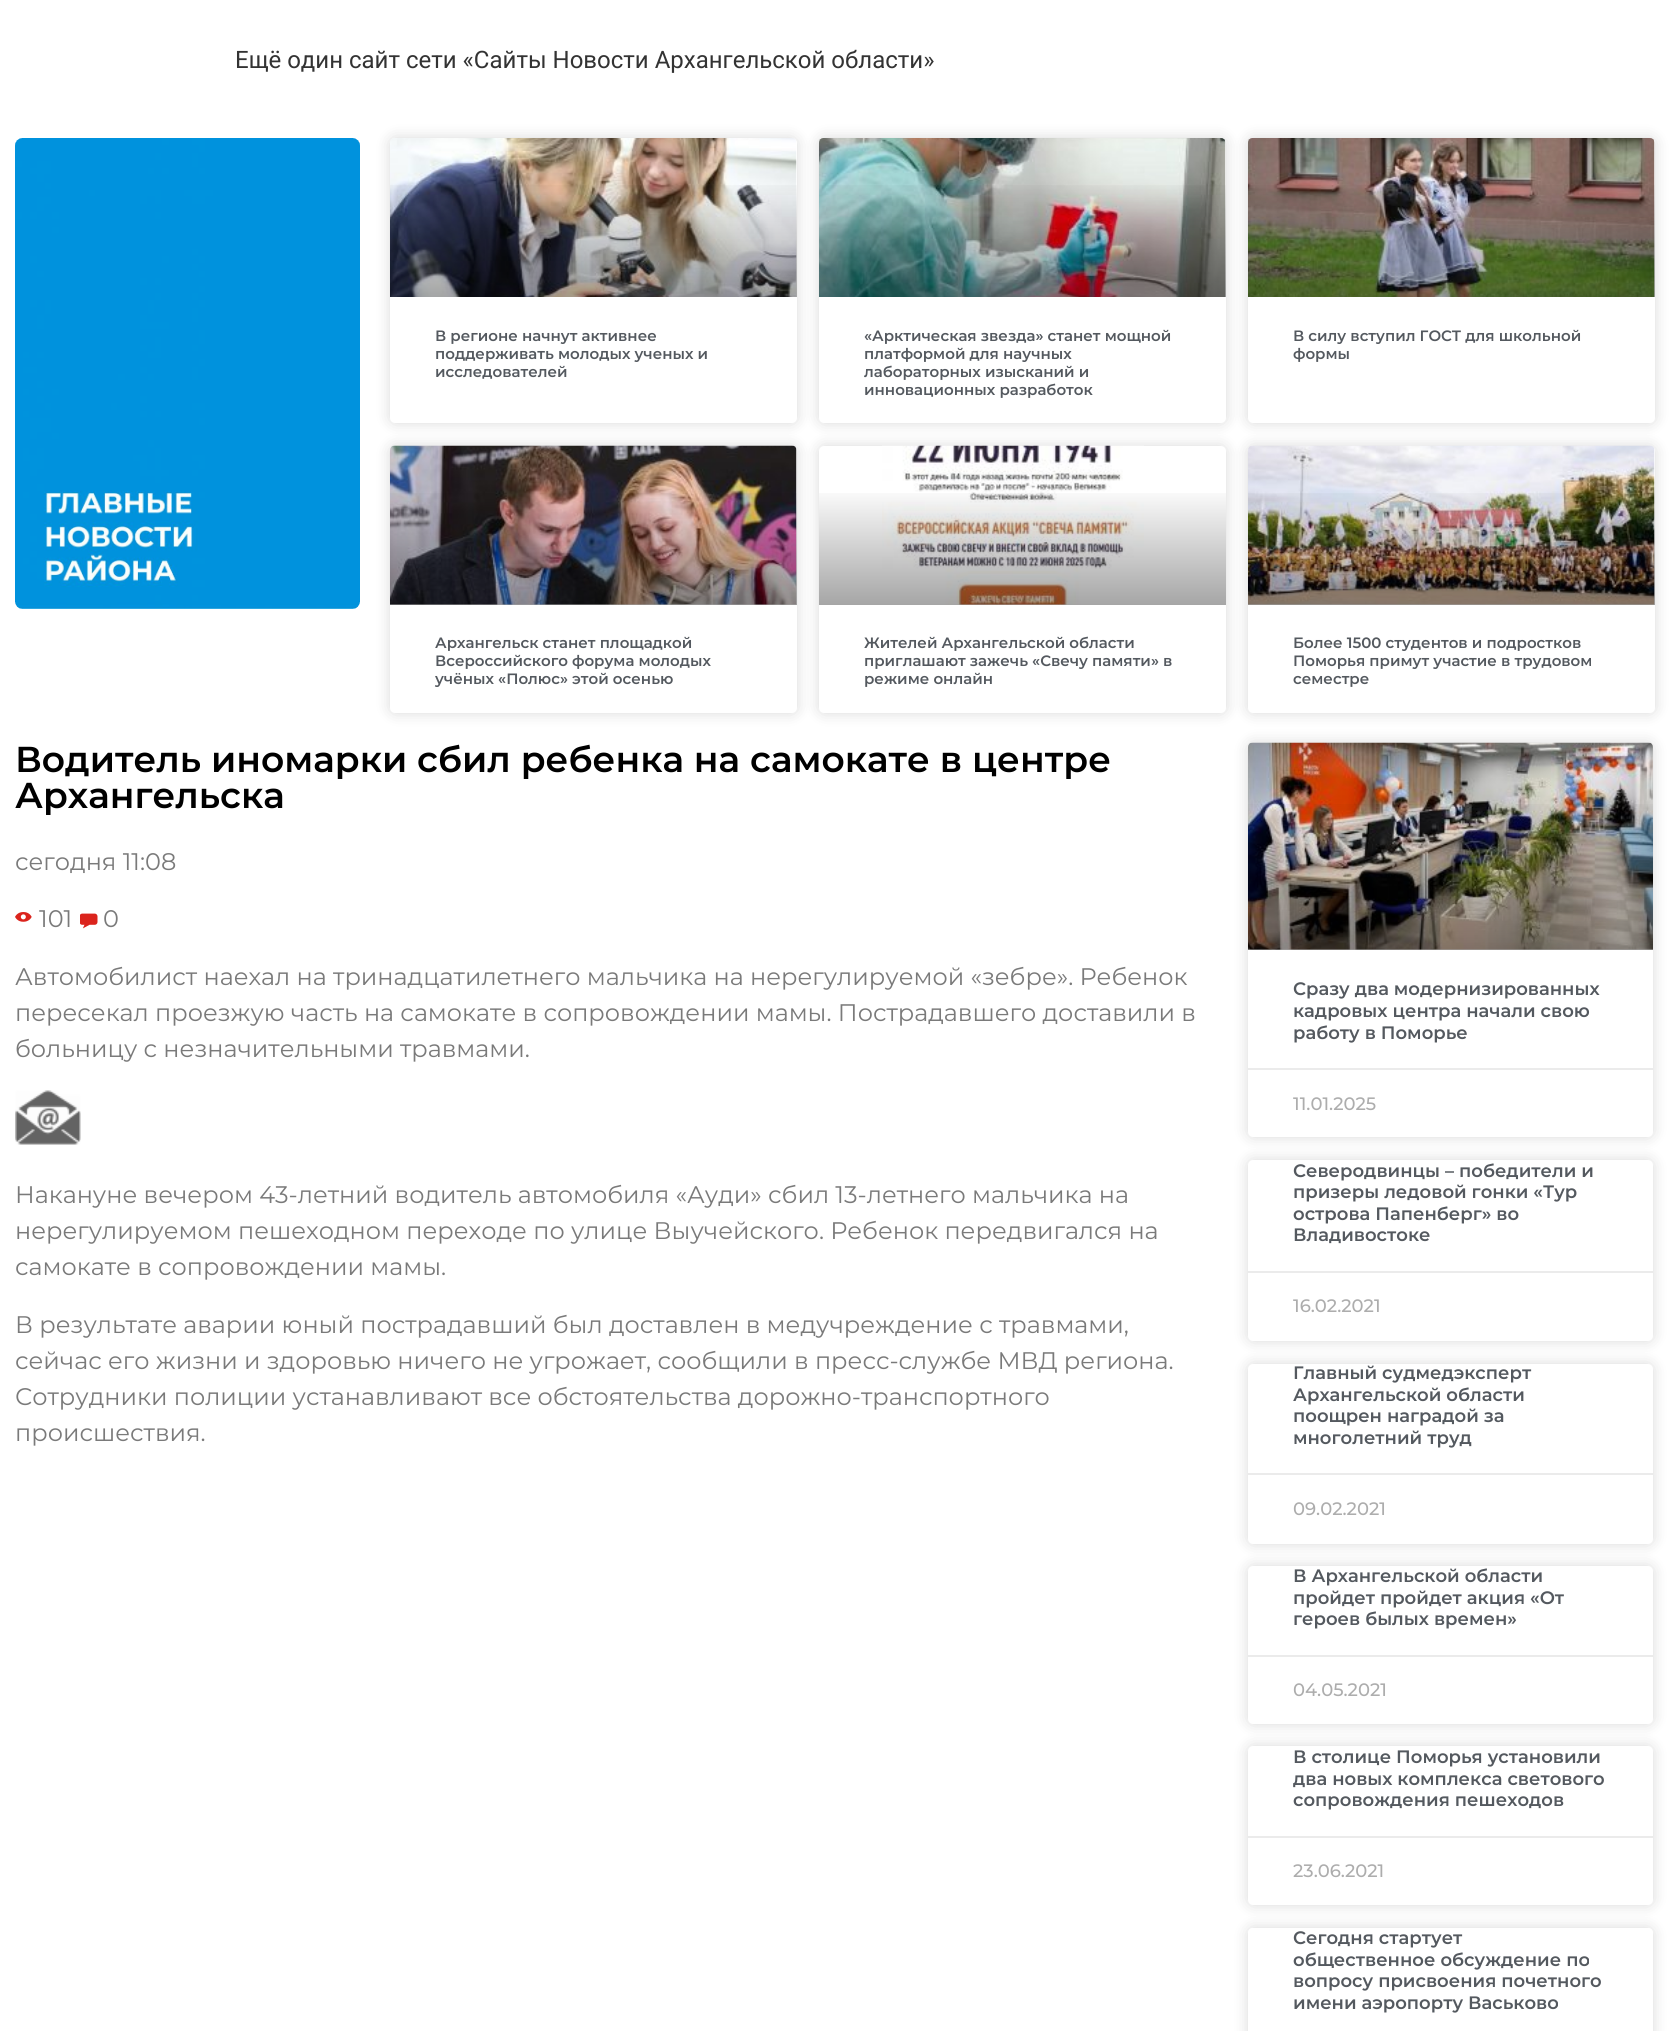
#include <cairo.h>
#include <math.h>
#include <stddef.h>


static void round_rect(cairo_t *cr, double x, double y, double w, double h, double r) {
    cairo_new_sub_path(cr);
    cairo_arc(cr, x + w - r, y + h - r, r, 0, M_PI / 2);
    cairo_arc(cr, x + r, y + h - r, r, M_PI / 2, M_PI);
    cairo_arc(cr, x + r, y + r, r, M_PI, 1.5 * M_PI);
    cairo_arc(cr, x + w - r, y + r, r, 1.5 * M_PI, 2 * M_PI);
    cairo_close_path(cr);
}

static void shadow(cairo_t *cr, double x, double y, double w, double h, double r, double blur, double alpha) {
    cairo_push_group_with_content(cr, CAIRO_CONTENT_ALPHA);
    cairo_set_operator(cr, CAIRO_OPERATOR_SOURCE);
    for (int i = 15; i >= -15 && fmin(w, h) + blur * i / 3 > 0; i -= 2) {
        double e = blur * i / 6;
        cairo_set_source_rgba(cr, 0, 0, 0, alpha * erfc((i - 1) / 8.5) / 2);
        round_rect(cr, x - e, y - e, w + 2 * e, h + 2 * e, fmax(0, fmin(r + e + blur * .6, fmin(w, h) / 2 + e)));
        cairo_fill(cr);
    }
    cairo_pattern_t *soft = cairo_pop_group(cr);
    cairo_mask(cr, soft);
    cairo_pattern_destroy(soft);
}

static void picture(cairo_t *cr, const char *path, double x, double y, double w, double h) {
    cairo_surface_t *image = cairo_image_surface_create_from_png(path);
    cairo_save(cr);
    cairo_set_source_surface(cr, image, x, y);
    cairo_rectangle(cr, x, y, w, h);
    cairo_fill(cr);
    cairo_restore(cr);
    cairo_surface_destroy(image);
}

int main(void) {
    cairo_surface_t *surface = cairo_image_surface_create(CAIRO_FORMAT_RGB24, 1669, 2031);
    cairo_t *cr = cairo_create(surface);
    cairo_font_options_t *options = cairo_font_options_create();
    cairo_font_options_set_hint_metrics(options, CAIRO_HINT_METRICS_OFF);
    cairo_font_options_set_hint_style(options, CAIRO_HINT_STYLE_NONE);
    cairo_set_font_options(cr, options);
    cairo_set_miter_limit(cr, 4);
    cairo_pattern_t *gradient;
    cairo_set_source_rgb(cr, 1, 1, 1);
    cairo_paint(cr);
    cairo_select_font_face(cr, "Roboto", CAIRO_FONT_SLANT_NORMAL, CAIRO_FONT_WEIGHT_NORMAL);
    cairo_set_font_size(cr, 24);
    cairo_set_source_rgb(cr, 0.2, 0.2, 0.2);
    cairo_move_to(cr, 235, 68);
    cairo_show_text(cr, "Ещё один сайт сети «Сайты Новости Архангельской области»");
    picture(cr, "img1.png", 15, 138, 345, 471);
    cairo_set_source_rgb(cr, 0, 0, 0);
    shadow(cr, 390, 138, 407, 285, 5, 7.5, 0.15);
    cairo_set_source_rgb(cr, 1, 1, 1);
    round_rect(cr, 390, 138, 407, 285, 5);
    cairo_fill(cr);
    picture(cr, "img2.png", 390, 138, 407, 159);
    gradient = cairo_pattern_create_linear(593, 297, 593, 138);
    cairo_pattern_add_color_stop_rgba(gradient, 0, 0, 0, 0, 0.35);
    cairo_pattern_add_color_stop_rgba(gradient, 0.75, 0, 0, 0, 0);
    cairo_set_source(cr, gradient);
    cairo_pattern_destroy(gradient);
    cairo_rectangle(cr, 390, 185, 407, 112);
    cairo_fill(cr);
    cairo_select_font_face(cr, "Montserrat SemiBold", CAIRO_FONT_SLANT_NORMAL, CAIRO_FONT_WEIGHT_NORMAL);
    cairo_set_font_size(cr, 15);
    cairo_set_source_rgb(cr, 0.329, 0.349, 0.373);
    cairo_move_to(cr, 435, 341);
    cairo_show_text(cr, "В регионе начнут активнее");
    cairo_move_to(cr, 435, 359);
    cairo_show_text(cr, "поддерживать молодых ученых и");
    cairo_move_to(cr, 435, 377);
    cairo_show_text(cr, "исследователей");
    cairo_set_source_rgb(cr, 0, 0, 0);
    shadow(cr, 819, 138, 407, 285, 5, 7.5, 0.15);
    cairo_set_source_rgb(cr, 1, 1, 1);
    round_rect(cr, 819, 138, 407, 285, 5);
    cairo_fill(cr);
    picture(cr, "img3.png", 819, 138, 407, 159);
    gradient = cairo_pattern_create_linear(1022, 297, 1022, 138);
    cairo_pattern_add_color_stop_rgba(gradient, 0, 0, 0, 0, 0.35);
    cairo_pattern_add_color_stop_rgba(gradient, 0.75, 0, 0, 0, 0);
    cairo_set_source(cr, gradient);
    cairo_pattern_destroy(gradient);
    cairo_rectangle(cr, 819, 185, 407, 112);
    cairo_fill(cr);
    cairo_set_source_rgb(cr, 0.329, 0.349, 0.373);
    cairo_move_to(cr, 864, 341);
    cairo_show_text(cr, "«Арктическая звезда» станет мощной");
    cairo_move_to(cr, 864, 359);
    cairo_show_text(cr, "платформой для научных");
    cairo_move_to(cr, 864, 377);
    cairo_show_text(cr, "лабораторных изысканий и");
    cairo_move_to(cr, 864, 395);
    cairo_show_text(cr, "инновационных разработок");
    cairo_set_source_rgb(cr, 0, 0, 0);
    shadow(cr, 1248, 138, 407, 285, 5, 7.5, 0.15);
    cairo_set_source_rgb(cr, 1, 1, 1);
    round_rect(cr, 1248, 138, 407, 285, 5);
    cairo_fill(cr);
    picture(cr, "img4.png", 1248, 138, 407, 159);
    gradient = cairo_pattern_create_linear(1451, 297, 1451, 138);
    cairo_pattern_add_color_stop_rgba(gradient, 0, 0, 0, 0, 0.35);
    cairo_pattern_add_color_stop_rgba(gradient, 0.75, 0, 0, 0, 0);
    cairo_set_source(cr, gradient);
    cairo_pattern_destroy(gradient);
    cairo_rectangle(cr, 1248, 185, 407, 112);
    cairo_fill(cr);
    cairo_set_source_rgb(cr, 0.329, 0.349, 0.373);
    cairo_move_to(cr, 1293, 341);
    cairo_show_text(cr, "В силу вступил ГОСТ для школьной");
    cairo_move_to(cr, 1293, 359);
    cairo_show_text(cr, "формы");
    cairo_set_source_rgb(cr, 0, 0, 0);
    shadow(cr, 390, 446, 407, 267, 5, 7.5, 0.15);
    cairo_set_source_rgb(cr, 1, 1, 1);
    round_rect(cr, 390, 446, 407, 267, 5);
    cairo_fill(cr);
    picture(cr, "img5.png", 390, 445, 407, 160);
    gradient = cairo_pattern_create_linear(593, 605, 593, 446);
    cairo_pattern_add_color_stop_rgba(gradient, 0, 0, 0, 0, 0.35);
    cairo_pattern_add_color_stop_rgba(gradient, 0.75, 0, 0, 0, 0);
    cairo_set_source(cr, gradient);
    cairo_pattern_destroy(gradient);
    cairo_rectangle(cr, 390, 493, 407, 112);
    cairo_fill(cr);
    cairo_set_source_rgb(cr, 0.329, 0.349, 0.373);
    cairo_move_to(cr, 435, 648);
    cairo_show_text(cr, "Архангельск станет площадкой");
    cairo_move_to(cr, 435, 666);
    cairo_show_text(cr, "Всероссийского форума молодых");
    cairo_move_to(cr, 435, 684);
    cairo_show_text(cr, "учёных «Полюс» этой осенью");
    cairo_set_source_rgb(cr, 0, 0, 0);
    shadow(cr, 819, 446, 407, 267, 5, 7.5, 0.15);
    cairo_set_source_rgb(cr, 1, 1, 1);
    round_rect(cr, 819, 446, 407, 267, 5);
    cairo_fill(cr);
    picture(cr, "img6.png", 882, 445, 262, 160);
    gradient = cairo_pattern_create_linear(1022, 605, 1022, 446);
    cairo_pattern_add_color_stop_rgba(gradient, 0, 0, 0, 0, 0.35);
    cairo_pattern_add_color_stop_rgba(gradient, 0.75, 0, 0, 0, 0);
    cairo_set_source(cr, gradient);
    cairo_pattern_destroy(gradient);
    cairo_rectangle(cr, 819, 493, 407, 112);
    cairo_fill(cr);
    cairo_set_source_rgb(cr, 0.329, 0.349, 0.373);
    cairo_move_to(cr, 864, 648);
    cairo_show_text(cr, "Жителей Архангельской области");
    cairo_move_to(cr, 864, 666);
    cairo_show_text(cr, "приглашают зажечь «Свечу памяти» в");
    cairo_move_to(cr, 864, 684);
    cairo_show_text(cr, "режиме онлайн");
    cairo_set_source_rgb(cr, 0, 0, 0);
    shadow(cr, 1248, 446, 407, 267, 5, 7.5, 0.15);
    cairo_set_source_rgb(cr, 1, 1, 1);
    round_rect(cr, 1248, 446, 407, 267, 5);
    cairo_fill(cr);
    picture(cr, "img7.png", 1248, 445, 407, 160);
    gradient = cairo_pattern_create_linear(1451, 605, 1451, 446);
    cairo_pattern_add_color_stop_rgba(gradient, 0, 0, 0, 0, 0.35);
    cairo_pattern_add_color_stop_rgba(gradient, 0.75, 0, 0, 0, 0);
    cairo_set_source(cr, gradient);
    cairo_pattern_destroy(gradient);
    cairo_rectangle(cr, 1248, 493, 407, 112);
    cairo_fill(cr);
    cairo_set_source_rgb(cr, 0.329, 0.349, 0.373);
    cairo_move_to(cr, 1293, 648);
    cairo_show_text(cr, "Более 1500 студентов и подростков");
    cairo_move_to(cr, 1293, 666);
    cairo_show_text(cr, "Поморья примут участие в трудовом");
    cairo_move_to(cr, 1293, 684);
    cairo_show_text(cr, "семестре");
    cairo_set_font_size(cr, 36);
    cairo_set_source_rgb(cr, 0, 0, 0);
    cairo_move_to(cr, 15, 772);
    cairo_show_text(cr, "Водитель иномарки сбил ребенка на самокате в центре");
    cairo_move_to(cr, 15, 808);
    cairo_show_text(cr, "Архангельска");
    cairo_select_font_face(cr, "Montserrat", CAIRO_FONT_SLANT_NORMAL, CAIRO_FONT_WEIGHT_NORMAL);
    cairo_set_font_size(cr, 24);
    cairo_set_source_rgb(cr, 0.478, 0.478, 0.478);
    cairo_move_to(cr, 15, 870);
    cairo_show_text(cr, "сегодня 11:08");
    picture(cr, "img8.png", 15, 912, 17, 10);
    cairo_move_to(cr, 39, 927);
    cairo_show_text(cr, "101");
    picture(cr, "img9.png", 80, 913, 18, 16);
    cairo_move_to(cr, 103, 927);
    cairo_show_text(cr, "0");
    cairo_move_to(cr, 15, 985);
    cairo_show_text(cr, "Автомобилист наехал на тринадцатилетнего мальчика на нерегулируемой «зебре». Ребенок");
    cairo_move_to(cr, 15, 1021);
    cairo_show_text(cr, "пересекал проезжую часть на самокате в сопровождении мамы. Пострадавшего доставили в");
    cairo_move_to(cr, 15, 1057);
    cairo_show_text(cr, "больницу с незначительными травмами.");
    picture(cr, "img10.png", 15, 1090, 66, 55);
    cairo_move_to(cr, 15, 1203);
    cairo_show_text(cr, "Накануне вечером 43-летний водитель автомобиля «Ауди» сбил 13-летнего мальчика на");
    cairo_move_to(cr, 15, 1239);
    cairo_show_text(cr, "нерегулируемом пешеходном переходе по улице Выучейского. Ребенок передвигался на");
    cairo_move_to(cr, 15, 1275);
    cairo_show_text(cr, "самокате в сопровождении мамы.");
    cairo_move_to(cr, 15, 1333);
    cairo_show_text(cr, "В результате аварии юный пострадавший был доставлен в медучреждение с травмами,");
    cairo_move_to(cr, 15, 1369);
    cairo_show_text(cr, "сейчас его жизни и здоровью ничего не угрожает, сообщили в пресс-службе МВД региона.");
    cairo_move_to(cr, 15, 1405);
    cairo_show_text(cr, "Сотрудники полиции устанавливают все обстоятельства дорожно-транспортного");
    cairo_move_to(cr, 15, 1441);
    cairo_show_text(cr, "происшествия.");
    cairo_set_source_rgb(cr, 0, 0, 0);
    shadow(cr, 1248, 743, 405, 394, 5, 7.5, 0.15);
    cairo_set_source_rgb(cr, 1, 1, 1);
    round_rect(cr, 1248, 743, 405, 394, 5);
    cairo_fill(cr);
    picture(cr, "img11.png", 1248, 742, 405, 208);
    gradient = cairo_pattern_create_linear(1451, 950, 1451, 743);
    cairo_pattern_add_color_stop_rgba(gradient, 0, 0, 0, 0, 0.35);
    cairo_pattern_add_color_stop_rgba(gradient, 0.75, 0, 0, 0, 0);
    cairo_set_source(cr, gradient);
    cairo_pattern_destroy(gradient);
    cairo_rectangle(cr, 1248, 804, 405, 146);
    cairo_fill(cr);
    cairo_select_font_face(cr, "Montserrat SemiBold", CAIRO_FONT_SLANT_NORMAL, CAIRO_FONT_WEIGHT_NORMAL);
    cairo_set_font_size(cr, 18);
    cairo_set_source_rgb(cr, 0.329, 0.349, 0.373);
    cairo_move_to(cr, 1293, 995);
    cairo_show_text(cr, "Сразу два модернизированных");
    cairo_move_to(cr, 1293, 1017);
    cairo_show_text(cr, "кадровых центра начали свою");
    cairo_move_to(cr, 1293, 1039);
    cairo_show_text(cr, "работу в Поморье");
    cairo_set_source_rgb(cr, 0.918, 0.918, 0.918);
    cairo_rectangle(cr, 1248, 1068, 405, 2);
    cairo_fill(cr);
    cairo_select_font_face(cr, "Montserrat Medium", CAIRO_FONT_SLANT_NORMAL, CAIRO_FONT_WEIGHT_NORMAL);
    cairo_set_source_rgb(cr, 0.678, 0.678, 0.678);
    cairo_move_to(cr, 1293, 1110);
    cairo_show_text(cr, "11.01.2025");
    cairo_set_source_rgb(cr, 0, 0, 0);
    shadow(cr, 1248, 1160, 405, 181, 5, 7.5, 0.15);
    cairo_set_source_rgb(cr, 1, 1, 1);
    round_rect(cr, 1248, 1160, 405, 181, 5);
    cairo_fill(cr);
    cairo_select_font_face(cr, "Montserrat SemiBold", CAIRO_FONT_SLANT_NORMAL, CAIRO_FONT_WEIGHT_NORMAL);
    cairo_set_source_rgb(cr, 0.329, 0.349, 0.373);
    cairo_move_to(cr, 1293, 1177);
    cairo_show_text(cr, "Северодвинцы – победители и");
    cairo_move_to(cr, 1293, 1198);
    cairo_show_text(cr, "призеры ледовой гонки «Тур");
    cairo_move_to(cr, 1293, 1220);
    cairo_show_text(cr, "острова Папенберг» во");
    cairo_move_to(cr, 1293, 1241);
    cairo_show_text(cr, "Владивостоке");
    cairo_set_source_rgb(cr, 0.918, 0.918, 0.918);
    cairo_rectangle(cr, 1248, 1271, 405, 2);
    cairo_fill(cr);
    cairo_select_font_face(cr, "Montserrat Medium", CAIRO_FONT_SLANT_NORMAL, CAIRO_FONT_WEIGHT_NORMAL);
    cairo_set_source_rgb(cr, 0.678, 0.678, 0.678);
    cairo_move_to(cr, 1293, 1312);
    cairo_show_text(cr, "16.02.2021");
    cairo_set_source_rgb(cr, 0, 0, 0);
    shadow(cr, 1248, 1364, 405, 180, 5, 7.5, 0.15);
    cairo_set_source_rgb(cr, 1, 1, 1);
    round_rect(cr, 1248, 1364, 405, 180, 5);
    cairo_fill(cr);
    cairo_select_font_face(cr, "Montserrat SemiBold", CAIRO_FONT_SLANT_NORMAL, CAIRO_FONT_WEIGHT_NORMAL);
    cairo_set_source_rgb(cr, 0.329, 0.349, 0.373);
    cairo_move_to(cr, 1293, 1379);
    cairo_show_text(cr, "Главный судмедэксперт");
    cairo_move_to(cr, 1293, 1401);
    cairo_show_text(cr, "Архангельской области");
    cairo_move_to(cr, 1293, 1422);
    cairo_show_text(cr, "поощрен наградой за");
    cairo_move_to(cr, 1293, 1444);
    cairo_show_text(cr, "многолетний труд");
    cairo_set_source_rgb(cr, 0.918, 0.918, 0.918);
    cairo_rectangle(cr, 1248, 1473, 405, 2);
    cairo_fill(cr);
    cairo_select_font_face(cr, "Montserrat Medium", CAIRO_FONT_SLANT_NORMAL, CAIRO_FONT_WEIGHT_NORMAL);
    cairo_set_source_rgb(cr, 0.678, 0.678, 0.678);
    cairo_move_to(cr, 1293, 1515);
    cairo_show_text(cr, "09.02.2021");
    cairo_set_source_rgb(cr, 0, 0, 0);
    shadow(cr, 1248, 1566, 405, 158, 5, 7.5, 0.15);
    cairo_set_source_rgb(cr, 1, 1, 1);
    round_rect(cr, 1248, 1566, 405, 158, 5);
    cairo_fill(cr);
    cairo_select_font_face(cr, "Montserrat SemiBold", CAIRO_FONT_SLANT_NORMAL, CAIRO_FONT_WEIGHT_NORMAL);
    cairo_set_source_rgb(cr, 0.329, 0.349, 0.373);
    cairo_move_to(cr, 1293, 1582);
    cairo_show_text(cr, "В Архангельской области");
    cairo_move_to(cr, 1293, 1604);
    cairo_show_text(cr, "пройдет пройдет акция «От");
    cairo_move_to(cr, 1293, 1625);
    cairo_show_text(cr, "героев былых времен»");
    cairo_set_source_rgb(cr, 0.918, 0.918, 0.918);
    cairo_rectangle(cr, 1248, 1655, 405, 2);
    cairo_fill(cr);
    cairo_select_font_face(cr, "Montserrat Medium", CAIRO_FONT_SLANT_NORMAL, CAIRO_FONT_WEIGHT_NORMAL);
    cairo_set_source_rgb(cr, 0.678, 0.678, 0.678);
    cairo_move_to(cr, 1293, 1696);
    cairo_show_text(cr, "04.05.2021");
    cairo_set_source_rgb(cr, 0, 0, 0);
    shadow(cr, 1248, 1746, 405, 159, 5, 7.5, 0.15);
    cairo_set_source_rgb(cr, 1, 1, 1);
    round_rect(cr, 1248, 1746, 405, 159, 5);
    cairo_fill(cr);
    cairo_select_font_face(cr, "Montserrat SemiBold", CAIRO_FONT_SLANT_NORMAL, CAIRO_FONT_WEIGHT_NORMAL);
    cairo_set_source_rgb(cr, 0.329, 0.349, 0.373);
    cairo_move_to(cr, 1293, 1763);
    cairo_show_text(cr, "В столице Поморья установили");
    cairo_move_to(cr, 1293, 1785);
    cairo_show_text(cr, "два новых комплекса светового");
    cairo_move_to(cr, 1293, 1806);
    cairo_show_text(cr, "сопровождения пешеходов");
    cairo_set_source_rgb(cr, 0.918, 0.918, 0.918);
    cairo_rectangle(cr, 1248, 1836, 405, 2);
    cairo_fill(cr);
    cairo_select_font_face(cr, "Montserrat Medium", CAIRO_FONT_SLANT_NORMAL, CAIRO_FONT_WEIGHT_NORMAL);
    cairo_set_source_rgb(cr, 0.678, 0.678, 0.678);
    cairo_move_to(cr, 1293, 1877);
    cairo_show_text(cr, "23.06.2021");
    cairo_save(cr);
    cairo_set_fill_rule(cr, CAIRO_FILL_RULE_EVEN_ODD);
    cairo_new_path(cr);
    cairo_move_to(cr, 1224, 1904);
    cairo_line_to(cr, 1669, 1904);
    cairo_line_to(cr, 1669, 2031);
    cairo_line_to(cr, 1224, 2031);
    cairo_close_path(cr);
    cairo_move_to(cr, 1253, 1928);
    cairo_line_to(cr, 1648, 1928);
    cairo_curve_to(cr, 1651, 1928, 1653, 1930, 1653, 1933);
    cairo_line_to(cr, 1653, 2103);
    cairo_curve_to(cr, 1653, 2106, 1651, 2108, 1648, 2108);
    cairo_line_to(cr, 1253, 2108);
    cairo_curve_to(cr, 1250, 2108, 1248, 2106, 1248, 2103);
    cairo_line_to(cr, 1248, 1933);
    cairo_curve_to(cr, 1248, 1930, 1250, 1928, 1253, 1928);
    cairo_close_path(cr);
    cairo_clip(cr);
    cairo_set_source_rgb(cr, 0, 0, 0);
    shadow(cr, 1248, 1928, 405, 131, 5, 7.5, 0.15);
    cairo_restore(cr);
    cairo_select_font_face(cr, "Montserrat SemiBold", CAIRO_FONT_SLANT_NORMAL, CAIRO_FONT_WEIGHT_NORMAL);
    cairo_set_source_rgb(cr, 0.329, 0.349, 0.373);
    cairo_move_to(cr, 1293, 1944);
    cairo_show_text(cr, "Сегодня стартует");
    cairo_move_to(cr, 1293, 1966);
    cairo_show_text(cr, "общественное обсуждение по");
    cairo_move_to(cr, 1293, 1987);
    cairo_show_text(cr, "вопросу присвоения почетного");
    cairo_move_to(cr, 1293, 2009);
    cairo_show_text(cr, "имени аэропорту Васьково");
    cairo_surface_write_to_png(surface, "page.png");
    cairo_font_options_destroy(options);
    cairo_destroy(cr);
    cairo_surface_destroy(surface);
    return 0;
}
